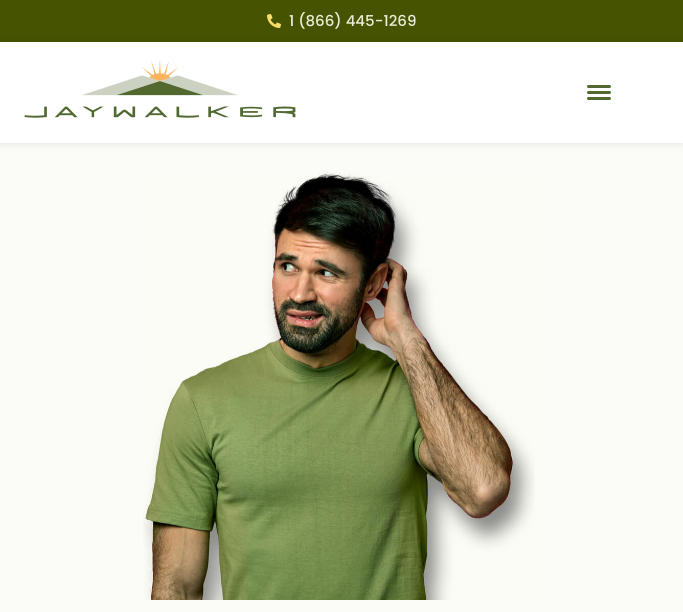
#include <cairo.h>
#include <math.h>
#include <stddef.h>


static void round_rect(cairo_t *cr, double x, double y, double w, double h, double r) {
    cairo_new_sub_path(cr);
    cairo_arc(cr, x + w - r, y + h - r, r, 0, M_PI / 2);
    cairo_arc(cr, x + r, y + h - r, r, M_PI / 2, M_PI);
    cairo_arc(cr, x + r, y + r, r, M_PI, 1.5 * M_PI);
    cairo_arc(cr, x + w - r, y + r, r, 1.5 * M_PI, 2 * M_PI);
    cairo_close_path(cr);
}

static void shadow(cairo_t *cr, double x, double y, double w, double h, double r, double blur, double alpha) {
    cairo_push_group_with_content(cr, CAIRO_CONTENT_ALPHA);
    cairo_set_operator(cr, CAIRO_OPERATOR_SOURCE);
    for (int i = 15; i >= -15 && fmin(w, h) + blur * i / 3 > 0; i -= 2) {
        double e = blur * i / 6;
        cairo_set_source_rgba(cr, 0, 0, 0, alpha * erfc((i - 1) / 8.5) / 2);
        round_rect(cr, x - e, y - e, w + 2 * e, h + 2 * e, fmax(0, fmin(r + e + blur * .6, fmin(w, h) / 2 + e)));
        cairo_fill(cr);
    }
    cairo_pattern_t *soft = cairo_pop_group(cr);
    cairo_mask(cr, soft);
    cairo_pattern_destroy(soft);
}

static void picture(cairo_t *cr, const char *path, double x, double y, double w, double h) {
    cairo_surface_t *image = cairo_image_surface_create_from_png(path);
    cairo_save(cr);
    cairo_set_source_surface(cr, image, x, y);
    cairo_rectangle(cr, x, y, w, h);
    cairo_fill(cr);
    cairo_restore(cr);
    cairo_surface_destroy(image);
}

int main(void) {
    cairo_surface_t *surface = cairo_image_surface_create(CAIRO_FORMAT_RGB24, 683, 612);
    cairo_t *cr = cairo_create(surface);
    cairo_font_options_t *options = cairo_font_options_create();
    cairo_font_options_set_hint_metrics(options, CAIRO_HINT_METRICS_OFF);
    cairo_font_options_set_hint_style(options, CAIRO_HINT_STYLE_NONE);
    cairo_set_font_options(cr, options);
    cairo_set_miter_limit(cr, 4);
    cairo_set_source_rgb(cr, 1, 1, 1);
    cairo_paint(cr);
    cairo_set_source_rgb(cr, 0.275, 0.325, 0.004);
    cairo_rectangle(cr, 0, 0, 683, 42);
    cairo_fill(cr);
    picture(cr, "img1.png", 267, 14, 14, 14);
    cairo_select_font_face(cr, "Poppins Medium", CAIRO_FONT_SLANT_NORMAL, CAIRO_FONT_WEIGHT_NORMAL);
    cairo_set_font_size(cr, 15);
    cairo_set_source_rgb(cr, 0.918, 0.925, 0.855);
    cairo_move_to(cr, 289, 26);
    cairo_show_text(cr, "1 (866) 445-1269");
    cairo_set_source_rgb(cr, 0.984, 0.988, 0.965);
    cairo_rectangle(cr, 0, 143, 683, 469);
    cairo_fill(cr);
    cairo_save(cr);
    cairo_set_fill_rule(cr, CAIRO_FILL_RULE_EVEN_ODD);
    cairo_new_path(cr);
    cairo_move_to(cr, 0, 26);
    cairo_line_to(cr, 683, 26);
    cairo_line_to(cr, 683, 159);
    cairo_line_to(cr, 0, 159);
    cairo_close_path(cr);
    cairo_move_to(cr, 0, 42);
    cairo_line_to(cr, 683, 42);
    cairo_line_to(cr, 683, 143);
    cairo_line_to(cr, 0, 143);
    cairo_close_path(cr);
    cairo_clip(cr);
    cairo_set_source_rgb(cr, 0, 0, 0);
    shadow(cr, 0, 42, 683, 101, 0, 5, 0.1);
    cairo_restore(cr);
    picture(cr, "img2.png", 24, 60, 272, 58);
    cairo_set_source_rgb(cr, 0.322, 0.408, 0.18);
    round_rect(cr, 587, 85, 24, 3, 1.5);
    cairo_fill(cr);
    round_rect(cr, 587, 91, 24, 3, 1.5);
    cairo_fill(cr);
    round_rect(cr, 587, 97, 24, 3, 1.5);
    cairo_fill(cr);
    picture(cr, "img3.png", 143, 172, 392, 428);
    cairo_surface_write_to_png(surface, "page.png");
    cairo_font_options_destroy(options);
    cairo_destroy(cr);
    cairo_surface_destroy(surface);
    return 0;
}
